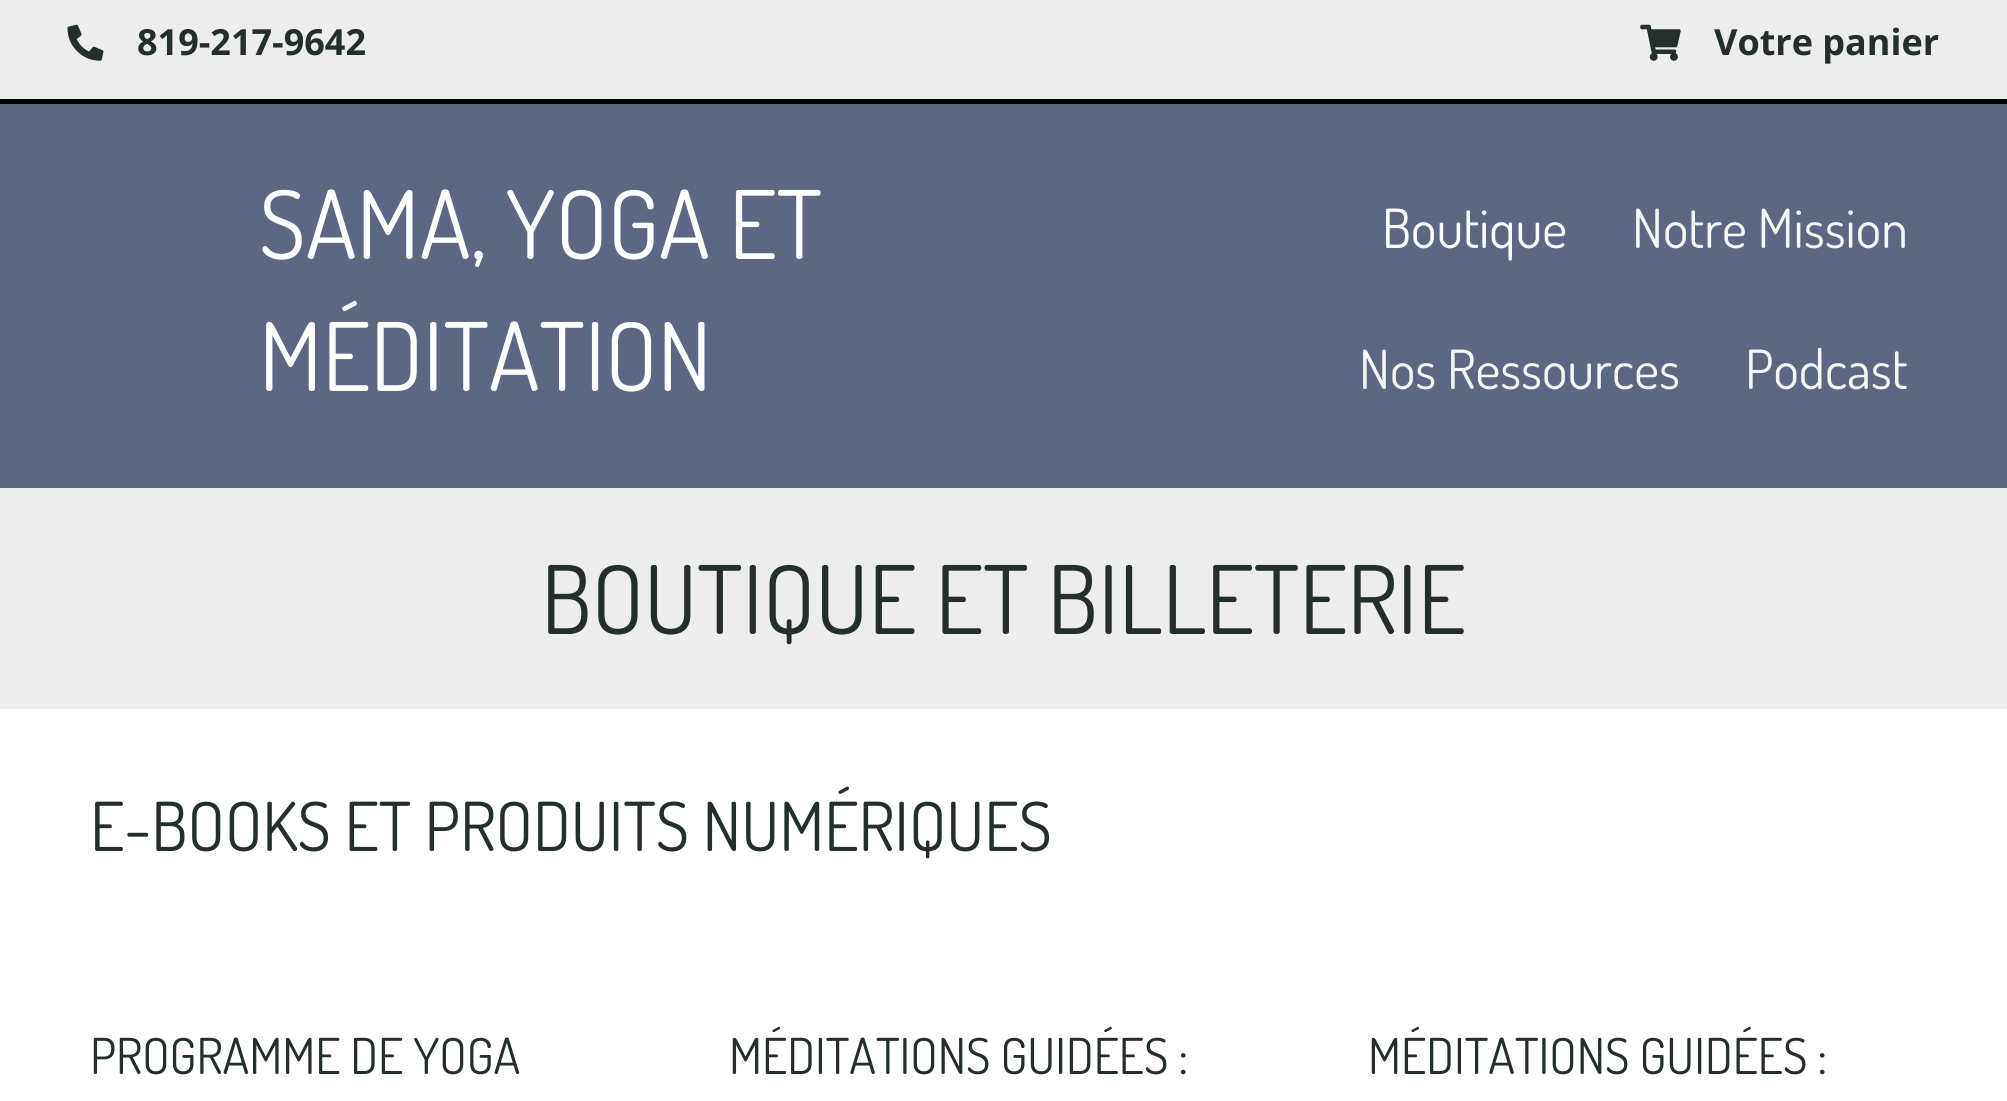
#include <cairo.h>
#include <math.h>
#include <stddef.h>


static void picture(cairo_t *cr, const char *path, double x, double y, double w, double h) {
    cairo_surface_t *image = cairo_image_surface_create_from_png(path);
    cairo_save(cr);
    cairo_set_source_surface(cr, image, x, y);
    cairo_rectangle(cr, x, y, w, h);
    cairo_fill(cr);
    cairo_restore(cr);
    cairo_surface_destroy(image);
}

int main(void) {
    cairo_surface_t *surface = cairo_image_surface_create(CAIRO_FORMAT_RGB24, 2007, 1101);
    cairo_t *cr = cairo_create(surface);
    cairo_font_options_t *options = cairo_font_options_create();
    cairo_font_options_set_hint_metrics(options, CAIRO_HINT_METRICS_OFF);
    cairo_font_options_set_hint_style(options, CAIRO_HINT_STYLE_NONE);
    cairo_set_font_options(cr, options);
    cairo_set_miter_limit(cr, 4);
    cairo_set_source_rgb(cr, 1, 1, 1);
    cairo_paint(cr);
    cairo_set_source_rgb(cr, 0.929, 0.929, 0.929);
    cairo_rectangle(cr, 0, 0, 2007, 99);
    cairo_fill(cr);
    cairo_set_source_rgb(cr, 0, 0, 0);
    cairo_rectangle(cr, 0, 99, 2007, 5);
    cairo_fill(cr);
    picture(cr, "img1.png", 67, 24, 37, 37);
    cairo_select_font_face(cr, "Open Sans", CAIRO_FONT_SLANT_NORMAL, CAIRO_FONT_WEIGHT_BOLD);
    cairo_set_font_size(cr, 36);
    cairo_set_source_rgb(cr, 0.137, 0.184, 0.161);
    cairo_move_to(cr, 137, 55);
    cairo_show_text(cr, "819-217-9642");
    picture(cr, "img2.png", 1640, 24, 41, 37);
    cairo_move_to(cr, 1714, 55);
    cairo_show_text(cr, "Votre panier");
    cairo_set_source_rgb(cr, 0.365, 0.404, 0.518);
    cairo_rectangle(cr, 0, 104, 2007, 384);
    cairo_fill(cr);
    cairo_select_font_face(cr, "Dosis", CAIRO_FONT_SLANT_NORMAL, CAIRO_FONT_WEIGHT_NORMAL);
    cairo_set_font_size(cr, 94.5);
    cairo_set_source_rgb(cr, 1, 1, 1);
    cairo_move_to(cr, 259, 259);
    cairo_show_text(cr, "SAMA, YOGA ET");
    cairo_move_to(cr, 259, 391);
    cairo_show_text(cr, "MÉDITATION");
    cairo_set_font_size(cr, 54);
    cairo_move_to(cr, 1382, 248);
    cairo_show_text(cr, "Boutique");
    cairo_set_source_rgb(cr, 0.961, 0.961, 0.961);
    cairo_move_to(cr, 1632, 248);
    cairo_show_text(cr, "Notre Mission");
    cairo_move_to(cr, 1359, 389);
    cairo_show_text(cr, "Nos Ressources");
    cairo_move_to(cr, 1745, 389);
    cairo_show_text(cr, "Podcast");
    cairo_set_source_rgb(cr, 0.929, 0.929, 0.929);
    cairo_rectangle(cr, 0, 488, 2007, 221);
    cairo_fill(cr);
    cairo_set_font_size(cr, 94.5);
    cairo_set_source_rgb(cr, 0.137, 0.184, 0.161);
    cairo_move_to(cr, 541, 634);
    cairo_show_text(cr, "BOUTIQUE ET BILLETERIE");
    cairo_set_font_size(cr, 67.5);
    cairo_move_to(cr, 90, 851);
    cairo_show_text(cr, "E-BOOKS ET PRODUITS NUMÉRIQUES");
    cairo_set_font_size(cr, 49.5);
    cairo_move_to(cr, 90, 1074);
    cairo_show_text(cr, "PROGRAMME DE YOGA");
    cairo_move_to(cr, 729, 1074);
    cairo_show_text(cr, "MÉDITATIONS GUIDÉES :");
    cairo_move_to(cr, 1368, 1074);
    cairo_show_text(cr, "MÉDITATIONS GUIDÉES :");
    cairo_surface_write_to_png(surface, "page.png");
    cairo_font_options_destroy(options);
    cairo_destroy(cr);
    cairo_surface_destroy(surface);
    return 0;
}
